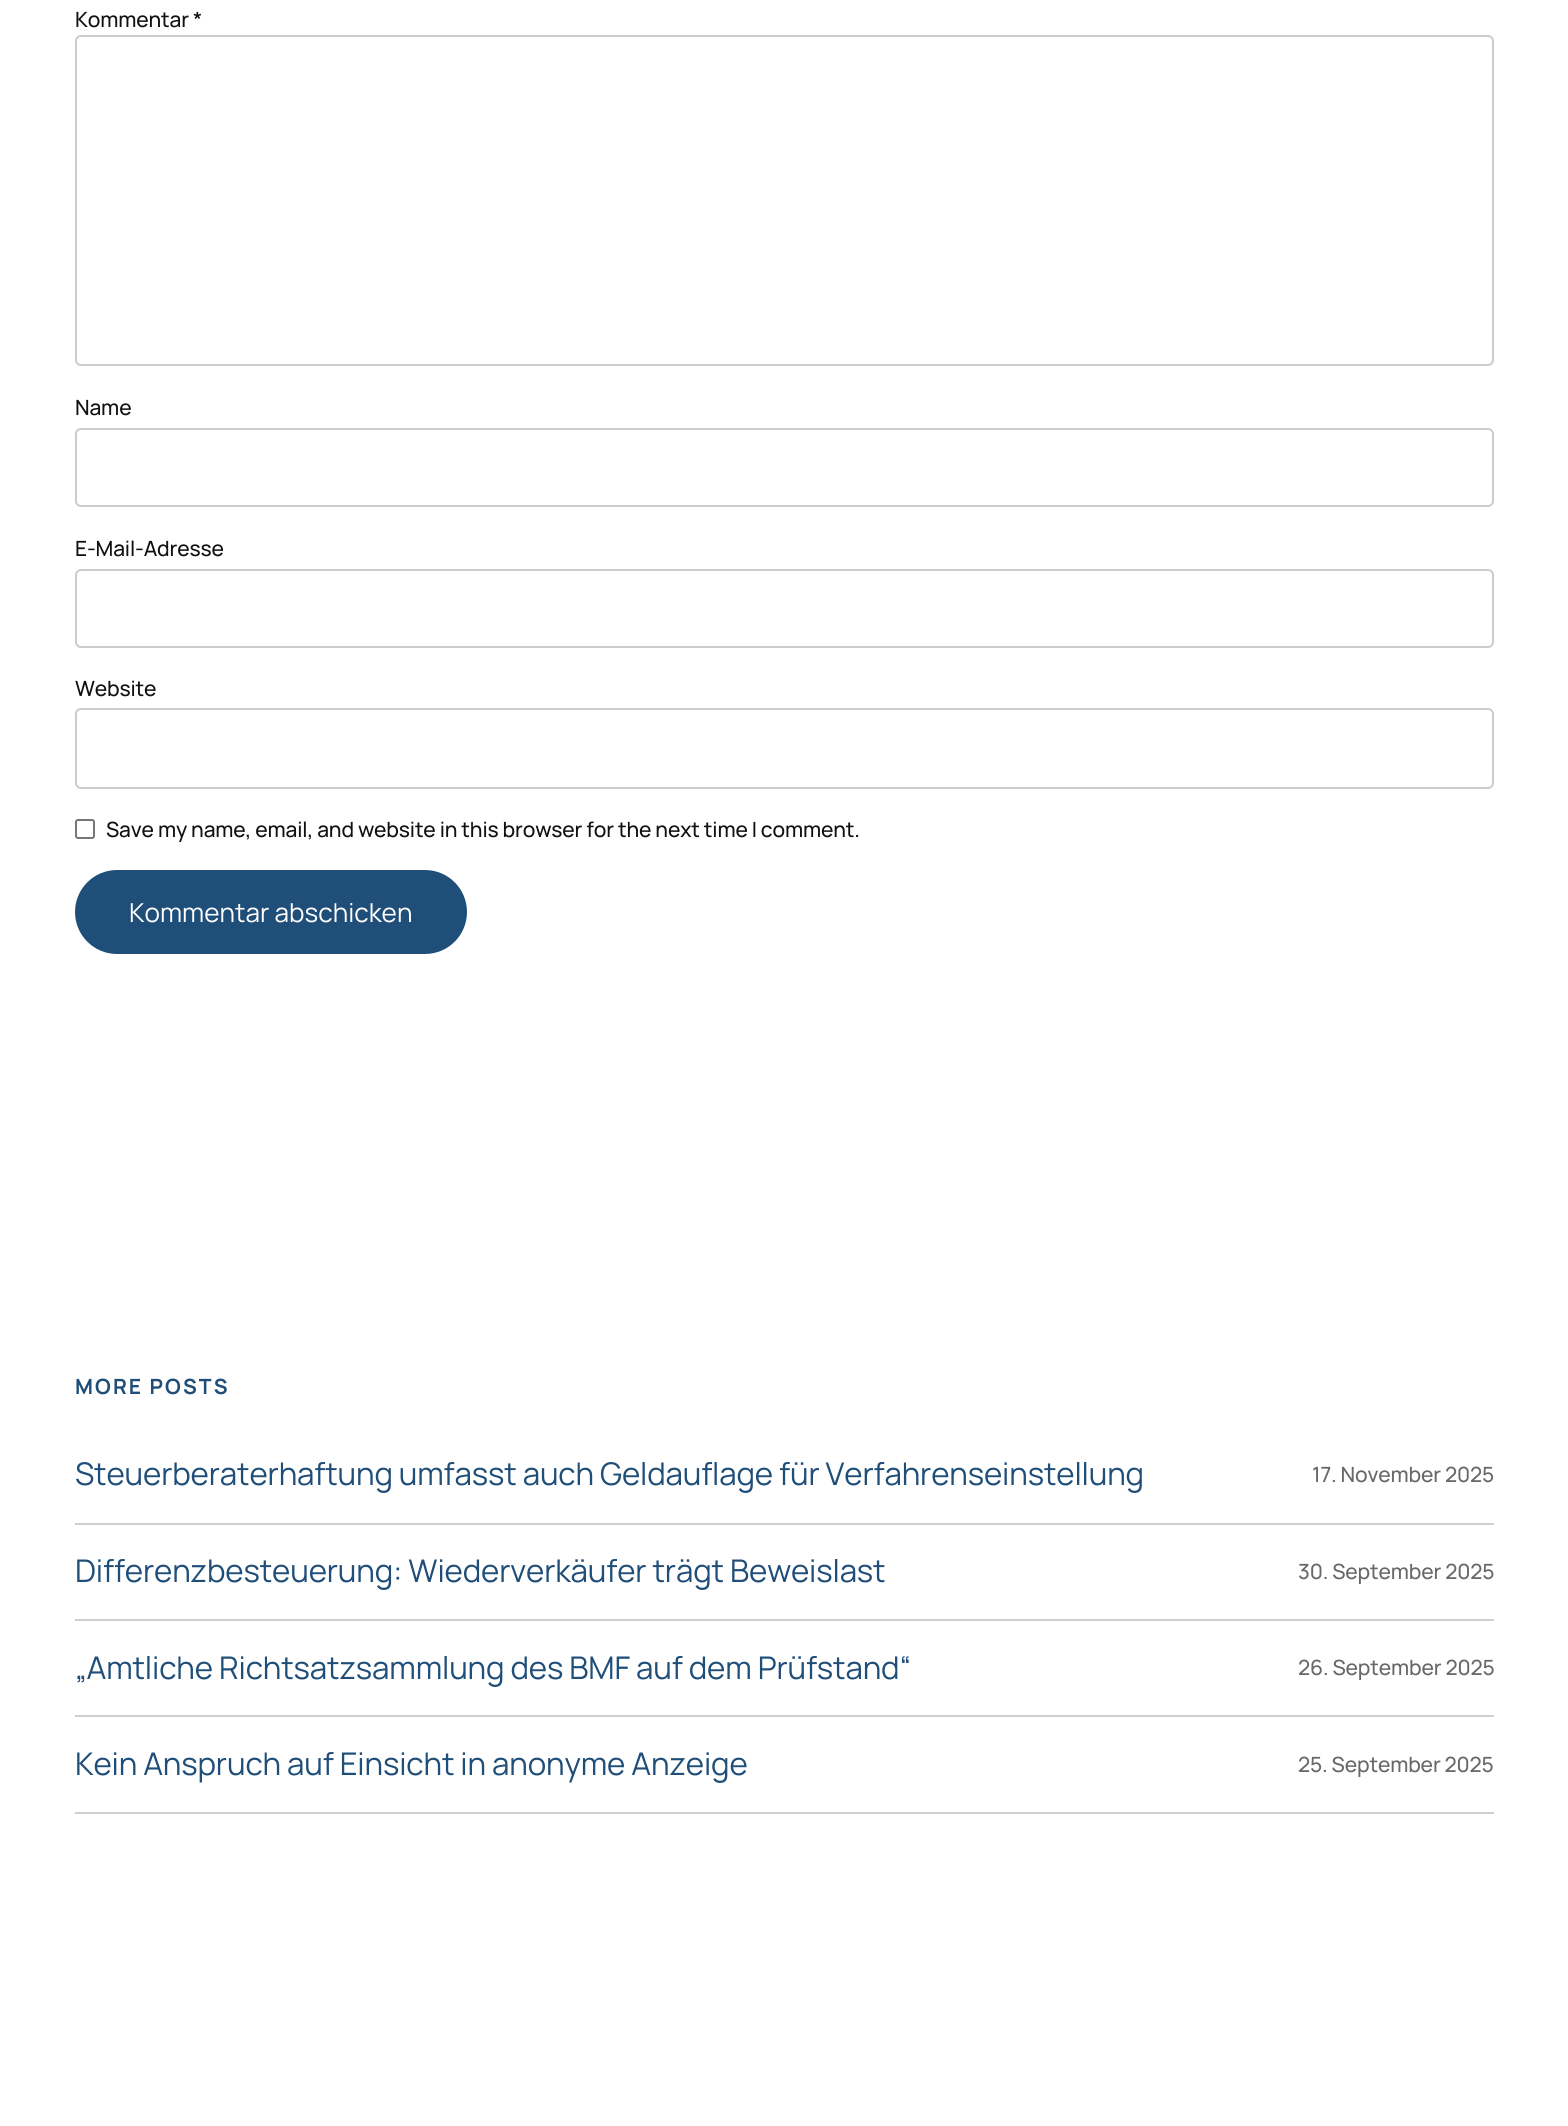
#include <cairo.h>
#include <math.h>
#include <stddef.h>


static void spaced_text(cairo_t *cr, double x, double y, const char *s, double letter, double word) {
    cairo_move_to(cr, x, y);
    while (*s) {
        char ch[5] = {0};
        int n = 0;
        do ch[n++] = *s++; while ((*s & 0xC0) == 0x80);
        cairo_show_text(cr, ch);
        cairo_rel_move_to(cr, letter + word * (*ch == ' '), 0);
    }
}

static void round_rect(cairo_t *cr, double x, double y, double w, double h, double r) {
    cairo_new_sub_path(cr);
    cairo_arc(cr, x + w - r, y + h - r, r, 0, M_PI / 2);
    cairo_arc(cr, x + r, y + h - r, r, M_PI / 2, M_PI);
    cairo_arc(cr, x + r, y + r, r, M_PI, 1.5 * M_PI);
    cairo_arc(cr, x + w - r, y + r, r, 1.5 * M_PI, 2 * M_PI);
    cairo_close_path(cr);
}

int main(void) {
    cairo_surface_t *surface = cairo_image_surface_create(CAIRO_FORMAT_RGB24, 1568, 2126);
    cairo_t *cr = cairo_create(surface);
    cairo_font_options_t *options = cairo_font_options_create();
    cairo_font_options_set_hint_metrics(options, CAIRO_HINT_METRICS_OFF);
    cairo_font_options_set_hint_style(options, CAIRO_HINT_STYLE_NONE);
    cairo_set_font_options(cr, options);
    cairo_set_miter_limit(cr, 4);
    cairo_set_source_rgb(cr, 1, 1, 1);
    cairo_paint(cr);
    cairo_select_font_face(cr, "Manrope Medium", CAIRO_FONT_SLANT_NORMAL, CAIRO_FONT_WEIGHT_NORMAL);
    cairo_set_font_size(cr, 21);
    cairo_set_source_rgb(cr, 0.067, 0.067, 0.067);
    spaced_text(cr, 75, 27, "Kommentar *", -0.15, 0);
    round_rect(cr, 76, 36, 1417, 329, 5);
    cairo_set_source_rgb(cr, 0.8, 0.8, 0.8);
    cairo_stroke(cr);
    cairo_set_source_rgb(cr, 0.067, 0.067, 0.067);
    spaced_text(cr, 75, 415, "Name", -0.15, 0);
    round_rect(cr, 76, 429, 1417, 77, 5);
    cairo_set_source_rgb(cr, 0.8, 0.8, 0.8);
    cairo_stroke(cr);
    cairo_set_source_rgb(cr, 0.067, 0.067, 0.067);
    spaced_text(cr, 75, 556, "E-Mail-Adresse", -0.15, 0);
    round_rect(cr, 76, 570, 1417, 77, 5);
    cairo_set_source_rgb(cr, 0.8, 0.8, 0.8);
    cairo_stroke(cr);
    cairo_set_source_rgb(cr, 0.067, 0.067, 0.067);
    spaced_text(cr, 75, 696, "Website", -0.15, 0);
    round_rect(cr, 76, 709, 1417, 79, 5);
    cairo_set_source_rgb(cr, 0.8, 0.8, 0.8);
    cairo_stroke(cr);
    round_rect(cr, 76, 820, 18, 18, 2);
    cairo_set_source_rgb(cr, 0.463, 0.463, 0.463);
    cairo_stroke(cr);
    cairo_set_source_rgb(cr, 0.067, 0.067, 0.067);
    spaced_text(cr, 106, 837, "Save my name, email, and website in this browser for the next time I comment.", -0.15, 0);
    cairo_set_source_rgb(cr, 0.122, 0.306, 0.475);
    round_rect(cr, 75, 870, 392, 84, 42);
    cairo_fill(cr);
    cairo_select_font_face(cr, "Manrope", CAIRO_FONT_SLANT_NORMAL, CAIRO_FONT_WEIGHT_NORMAL);
    cairo_set_font_size(cr, 26.1);
    cairo_set_source_rgb(cr, 1, 1, 1);
    cairo_move_to(cr, 129, 922);
    cairo_show_text(cr, "Kommentar abschicken");
    cairo_select_font_face(cr, "Manrope", CAIRO_FONT_SLANT_NORMAL, CAIRO_FONT_WEIGHT_BOLD);
    cairo_set_font_size(cr, 21);
    cairo_set_source_rgb(cr, 0.122, 0.306, 0.475);
    spaced_text(cr, 75, 1394, "MORE POSTS", 2.1, 0);
    cairo_set_source_rgb(cr, 0.812, 0.812, 0.812);
    cairo_rectangle(cr, 75, 1523, 1419, 2);
    cairo_fill(cr);
    cairo_select_font_face(cr, "Manrope", CAIRO_FONT_SLANT_NORMAL, CAIRO_FONT_WEIGHT_NORMAL);
    cairo_set_font_size(cr, 31.25);
    cairo_set_source_rgb(cr, 0.122, 0.306, 0.475);
    spaced_text(cr, 75, 1485, "Steuerberaterhaftung umfasst auch Geldauflage für Verfahrenseinstellung", -0.15, 0);
    cairo_select_font_face(cr, "Manrope Medium", CAIRO_FONT_SLANT_NORMAL, CAIRO_FONT_WEIGHT_NORMAL);
    cairo_set_font_size(cr, 21);
    cairo_set_source_rgb(cr, 0.408, 0.408, 0.408);
    spaced_text(cr, 1312, 1482, "17. November 2025", -0.15, 0);
    cairo_set_source_rgb(cr, 0.812, 0.812, 0.812);
    cairo_rectangle(cr, 75, 1619, 1419, 2);
    cairo_fill(cr);
    cairo_select_font_face(cr, "Manrope", CAIRO_FONT_SLANT_NORMAL, CAIRO_FONT_WEIGHT_NORMAL);
    cairo_set_font_size(cr, 31.25);
    cairo_set_source_rgb(cr, 0.122, 0.306, 0.475);
    spaced_text(cr, 75, 1582, "Differenzbesteuerung: Wiederverkäufer trägt Beweislast", -0.15, 0);
    cairo_select_font_face(cr, "Manrope Medium", CAIRO_FONT_SLANT_NORMAL, CAIRO_FONT_WEIGHT_NORMAL);
    cairo_set_font_size(cr, 21);
    cairo_set_source_rgb(cr, 0.408, 0.408, 0.408);
    spaced_text(cr, 1298, 1579, "30. September 2025", -0.15, 0);
    cairo_set_source_rgb(cr, 0.812, 0.812, 0.812);
    cairo_rectangle(cr, 75, 1715, 1419, 2);
    cairo_fill(cr);
    cairo_select_font_face(cr, "Manrope", CAIRO_FONT_SLANT_NORMAL, CAIRO_FONT_WEIGHT_NORMAL);
    cairo_set_font_size(cr, 31.25);
    cairo_set_source_rgb(cr, 0.122, 0.306, 0.475);
    spaced_text(cr, 75, 1679, "„Amtliche Richtsatzsammlung des BMF auf dem Prüfstand“", -0.15, 0);
    cairo_select_font_face(cr, "Manrope Medium", CAIRO_FONT_SLANT_NORMAL, CAIRO_FONT_WEIGHT_NORMAL);
    cairo_set_font_size(cr, 21);
    cairo_set_source_rgb(cr, 0.408, 0.408, 0.408);
    spaced_text(cr, 1298, 1675, "26. September 2025", -0.15, 0);
    cairo_set_source_rgb(cr, 0.812, 0.812, 0.812);
    cairo_rectangle(cr, 75, 1812, 1419, 2);
    cairo_fill(cr);
    cairo_select_font_face(cr, "Manrope", CAIRO_FONT_SLANT_NORMAL, CAIRO_FONT_WEIGHT_NORMAL);
    cairo_set_font_size(cr, 31.25);
    cairo_set_source_rgb(cr, 0.122, 0.306, 0.475);
    spaced_text(cr, 75, 1775, "Kein Anspruch auf Einsicht in anonyme Anzeige", -0.15, 0);
    cairo_select_font_face(cr, "Manrope Medium", CAIRO_FONT_SLANT_NORMAL, CAIRO_FONT_WEIGHT_NORMAL);
    cairo_set_font_size(cr, 21);
    cairo_set_source_rgb(cr, 0.408, 0.408, 0.408);
    spaced_text(cr, 1298, 1772, "25. September 2025", -0.15, 0);
    cairo_surface_write_to_png(surface, "page.png");
    cairo_font_options_destroy(options);
    cairo_destroy(cr);
    cairo_surface_destroy(surface);
    return 0;
}
